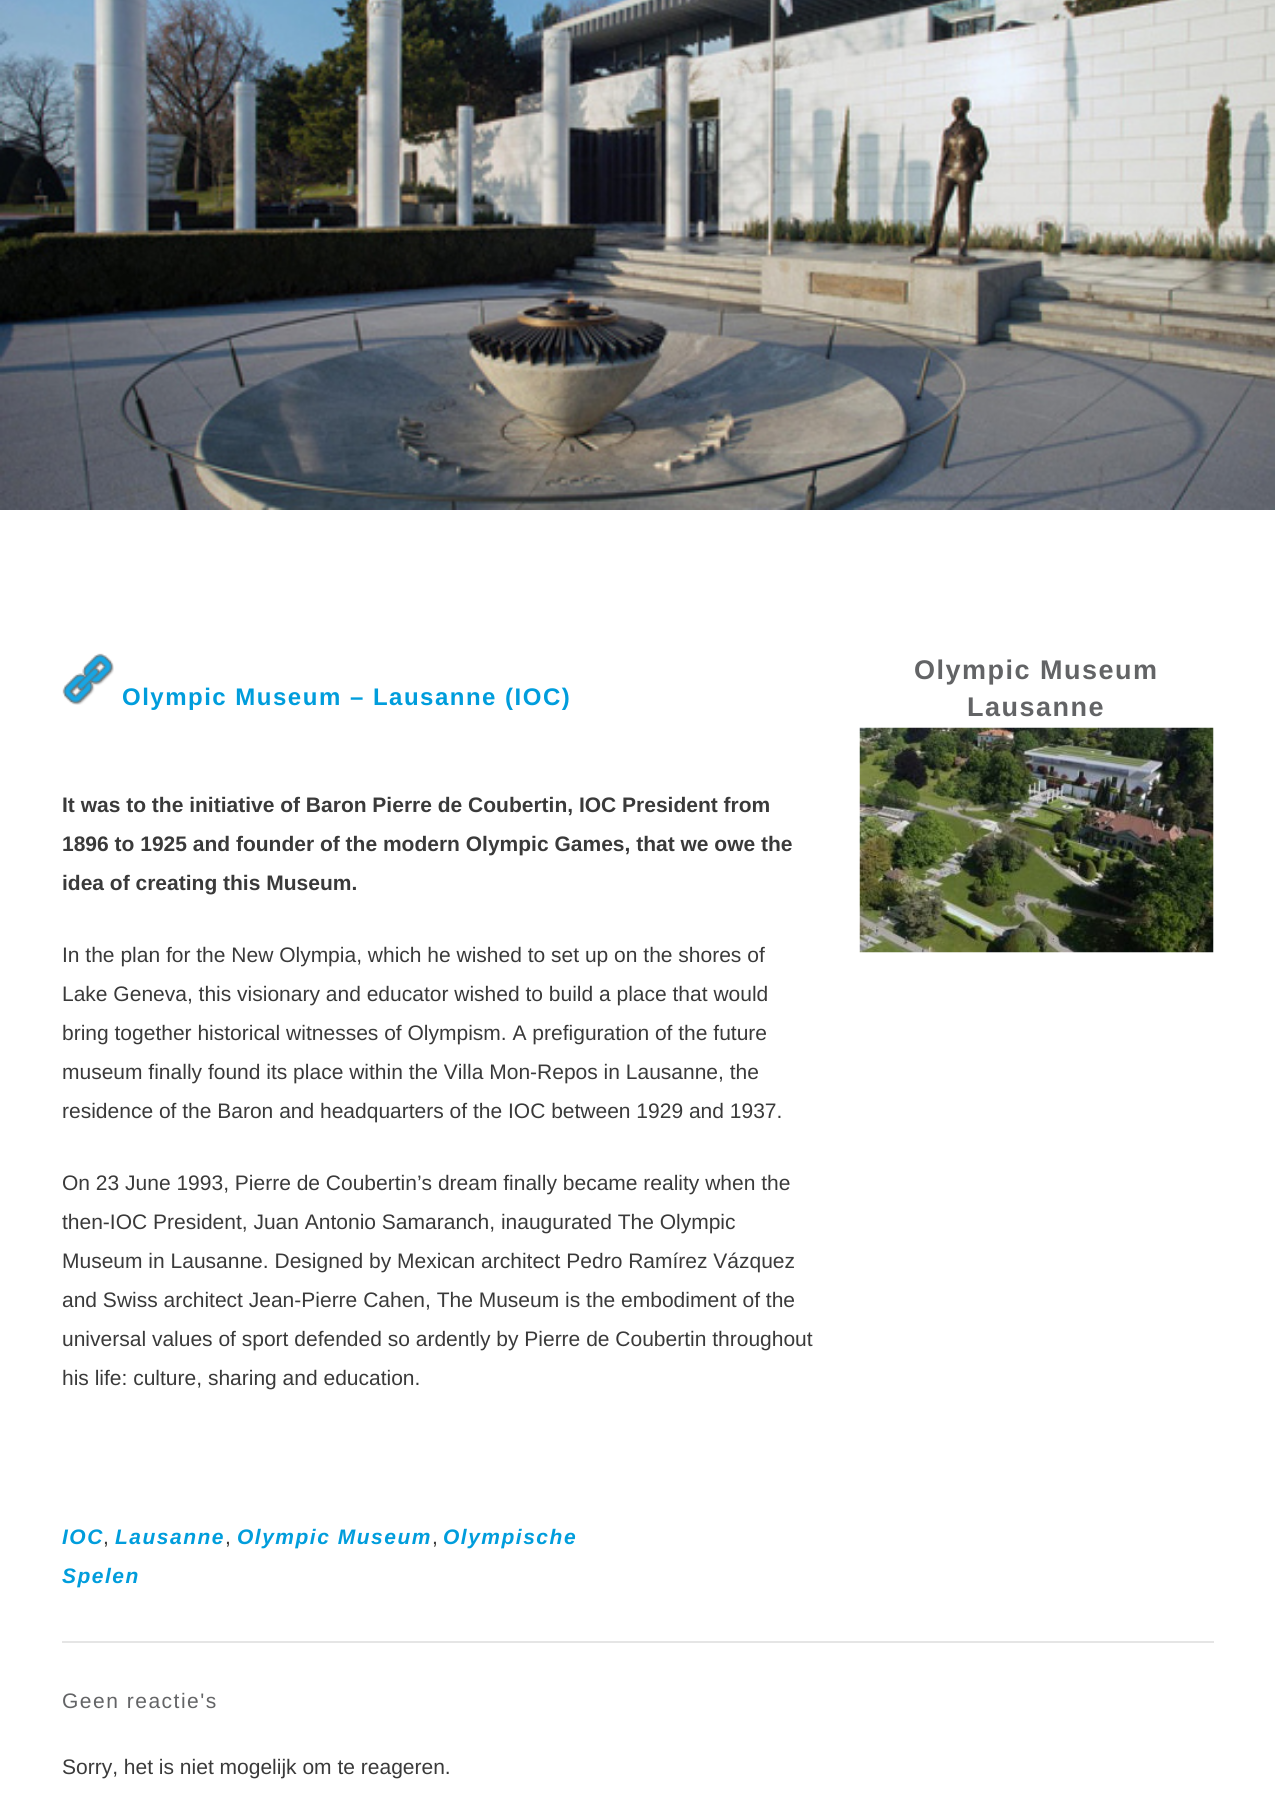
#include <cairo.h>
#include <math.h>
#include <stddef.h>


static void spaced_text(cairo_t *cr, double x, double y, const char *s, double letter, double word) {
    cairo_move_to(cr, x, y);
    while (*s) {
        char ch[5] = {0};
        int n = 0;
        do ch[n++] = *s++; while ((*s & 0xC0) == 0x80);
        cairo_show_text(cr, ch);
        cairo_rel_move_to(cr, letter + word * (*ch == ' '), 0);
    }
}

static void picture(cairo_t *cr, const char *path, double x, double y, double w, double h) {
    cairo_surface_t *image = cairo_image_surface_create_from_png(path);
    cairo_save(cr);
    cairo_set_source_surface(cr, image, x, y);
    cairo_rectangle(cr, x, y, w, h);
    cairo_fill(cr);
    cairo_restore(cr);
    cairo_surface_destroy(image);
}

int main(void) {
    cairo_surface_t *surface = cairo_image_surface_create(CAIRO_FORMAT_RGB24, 1275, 1812);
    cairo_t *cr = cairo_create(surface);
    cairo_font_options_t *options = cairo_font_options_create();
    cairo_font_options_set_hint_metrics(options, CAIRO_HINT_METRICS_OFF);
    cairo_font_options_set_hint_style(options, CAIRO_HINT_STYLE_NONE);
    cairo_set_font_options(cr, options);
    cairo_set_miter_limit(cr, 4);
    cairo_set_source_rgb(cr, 1, 1, 1);
    cairo_paint(cr);
    picture(cr, "img1.png", 0, 0, 1275, 510);
    picture(cr, "img2.png", 62, 653, 52, 52);
    cairo_select_font_face(cr, "Liberation Sans", CAIRO_FONT_SLANT_NORMAL, CAIRO_FONT_WEIGHT_BOLD);
    cairo_set_font_size(cr, 24);
    cairo_set_source_rgb(cr, 0, 0.616, 0.863);
    spaced_text(cr, 122, 705, "Olympic Museum – Lausanne (IOC)", 1.5, 0);
    cairo_set_font_size(cr, 21);
    cairo_set_source_rgb(cr, 0.227, 0.227, 0.227);
    cairo_move_to(cr, 62, 812);
    cairo_show_text(cr, "It was to the initiative of Baron Pierre de Coubertin, IOC President from");
    cairo_move_to(cr, 62, 851);
    cairo_show_text(cr, "1896 to 1925 and founder of the modern Olympic Games, that we owe the");
    cairo_move_to(cr, 62, 890);
    cairo_show_text(cr, "idea of creating this Museum.");
    cairo_select_font_face(cr, "Liberation Sans", CAIRO_FONT_SLANT_NORMAL, CAIRO_FONT_WEIGHT_NORMAL);
    cairo_move_to(cr, 62, 962);
    cairo_show_text(cr, "In the plan for the New Olympia, which he wished to set up on the shores of");
    cairo_move_to(cr, 62, 1001);
    cairo_show_text(cr, "Lake Geneva, this visionary and educator wished to build a place that would");
    cairo_move_to(cr, 62, 1040);
    cairo_show_text(cr, "bring together historical witnesses of Olympism. A prefiguration of the future");
    cairo_move_to(cr, 62, 1079);
    cairo_show_text(cr, "museum finally found its place within the Villa Mon-Repos in Lausanne, the");
    cairo_move_to(cr, 62, 1118);
    cairo_show_text(cr, "residence of the Baron and headquarters of the IOC between 1929 and 1937.");
    cairo_move_to(cr, 62, 1190);
    cairo_show_text(cr, "On 23 June 1993, Pierre de Coubertin’s dream finally became reality when the");
    cairo_move_to(cr, 62, 1229);
    cairo_show_text(cr, "then-IOC President, Juan Antonio Samaranch, inaugurated The Olympic");
    cairo_move_to(cr, 62, 1268);
    cairo_show_text(cr, "Museum in Lausanne. Designed by Mexican architect Pedro Ramírez Vázquez");
    cairo_move_to(cr, 62, 1307);
    cairo_show_text(cr, "and Swiss architect Jean-Pierre Cahen, The Museum is the embodiment of the");
    cairo_move_to(cr, 62, 1346);
    cairo_show_text(cr, "universal values of sport defended so ardently by Pierre de Coubertin throughout");
    cairo_move_to(cr, 62, 1385);
    cairo_show_text(cr, "his life: culture, sharing and education.");
    cairo_select_font_face(cr, "Liberation Sans", CAIRO_FONT_SLANT_NORMAL, CAIRO_FONT_WEIGHT_BOLD);
    cairo_set_font_size(cr, 27);
    cairo_set_source_rgb(cr, 0.388, 0.392, 0.4);
    spaced_text(cr, 914, 679, "Olympic Museum", 1.5, 0);
    spaced_text(cr, 967, 716, "Lausanne", 1.5, 0);
    picture(cr, "img3.png", 859, 727, 355, 226);
    cairo_set_source_rgb(cr, 0.898, 0.898, 0.898);
    cairo_rectangle(cr, 62, 1641, 1152, 2);
    cairo_fill(cr);
    cairo_select_font_face(cr, "Liberation Sans", CAIRO_FONT_SLANT_ITALIC, CAIRO_FONT_WEIGHT_BOLD);
    cairo_set_font_size(cr, 21);
    cairo_set_source_rgb(cr, 0, 0.616, 0.863);
    spaced_text(cr, 62, 1544, "IOC", 1.5, 0);
    cairo_select_font_face(cr, "Liberation Sans", CAIRO_FONT_SLANT_NORMAL, CAIRO_FONT_WEIGHT_NORMAL);
    cairo_set_source_rgb(cr, 0.227, 0.227, 0.227);
    cairo_move_to(cr, 103, 1544);
    cairo_show_text(cr, ",");
    cairo_select_font_face(cr, "Liberation Sans", CAIRO_FONT_SLANT_ITALIC, CAIRO_FONT_WEIGHT_BOLD);
    cairo_set_source_rgb(cr, 0, 0.616, 0.863);
    spaced_text(cr, 115, 1544, "Lausanne", 1.5, 0);
    cairo_select_font_face(cr, "Liberation Sans", CAIRO_FONT_SLANT_NORMAL, CAIRO_FONT_WEIGHT_NORMAL);
    cairo_set_source_rgb(cr, 0.227, 0.227, 0.227);
    cairo_move_to(cr, 225, 1544);
    cairo_show_text(cr, ",");
    cairo_select_font_face(cr, "Liberation Sans", CAIRO_FONT_SLANT_ITALIC, CAIRO_FONT_WEIGHT_BOLD);
    cairo_set_source_rgb(cr, 0, 0.616, 0.863);
    spaced_text(cr, 237, 1544, "Olympic Museum", 1.5, 0);
    cairo_select_font_face(cr, "Liberation Sans", CAIRO_FONT_SLANT_NORMAL, CAIRO_FONT_WEIGHT_NORMAL);
    cairo_set_source_rgb(cr, 0.227, 0.227, 0.227);
    cairo_move_to(cr, 432, 1544);
    cairo_show_text(cr, ",");
    cairo_select_font_face(cr, "Liberation Sans", CAIRO_FONT_SLANT_ITALIC, CAIRO_FONT_WEIGHT_BOLD);
    cairo_set_source_rgb(cr, 0, 0.616, 0.863);
    spaced_text(cr, 443, 1544, "Olympische", 1.5, 0);
    spaced_text(cr, 62, 1583, "Spelen", 1.5, 0);
    cairo_select_font_face(cr, "Liberation Sans", CAIRO_FONT_SLANT_NORMAL, CAIRO_FONT_WEIGHT_NORMAL);
    cairo_set_source_rgb(cr, 0.388, 0.392, 0.4);
    spaced_text(cr, 62, 1708, "Geen reactie's", 1.5, 0);
    cairo_set_source_rgb(cr, 0.227, 0.227, 0.227);
    cairo_move_to(cr, 62, 1774);
    cairo_show_text(cr, "Sorry, het is niet mogelijk om te reageren.");
    cairo_surface_write_to_png(surface, "page.png");
    cairo_font_options_destroy(options);
    cairo_destroy(cr);
    cairo_surface_destroy(surface);
    return 0;
}
